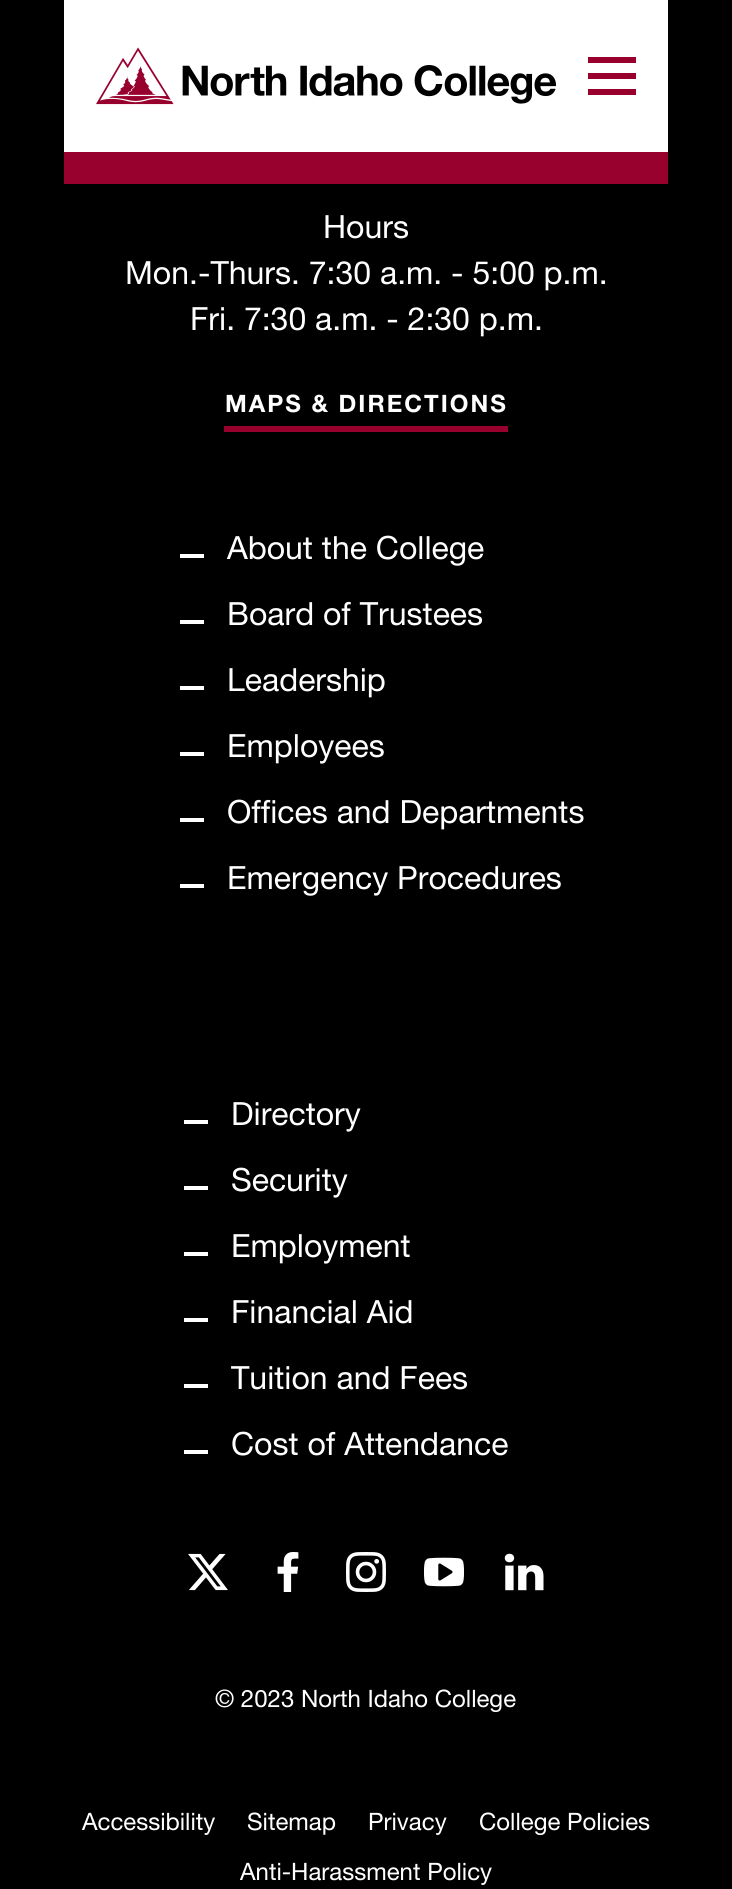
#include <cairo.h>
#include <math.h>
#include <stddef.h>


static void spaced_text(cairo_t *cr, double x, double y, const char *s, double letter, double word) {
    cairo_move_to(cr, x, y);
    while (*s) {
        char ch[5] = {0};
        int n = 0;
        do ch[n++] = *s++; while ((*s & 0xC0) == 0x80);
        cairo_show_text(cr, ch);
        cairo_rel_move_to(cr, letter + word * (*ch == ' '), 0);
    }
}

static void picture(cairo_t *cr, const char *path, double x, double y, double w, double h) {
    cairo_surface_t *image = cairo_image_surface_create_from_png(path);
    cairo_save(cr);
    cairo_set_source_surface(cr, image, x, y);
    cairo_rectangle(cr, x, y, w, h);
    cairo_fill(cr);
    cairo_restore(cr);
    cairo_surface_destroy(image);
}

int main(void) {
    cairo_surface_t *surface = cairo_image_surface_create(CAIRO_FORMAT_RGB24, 732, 1889);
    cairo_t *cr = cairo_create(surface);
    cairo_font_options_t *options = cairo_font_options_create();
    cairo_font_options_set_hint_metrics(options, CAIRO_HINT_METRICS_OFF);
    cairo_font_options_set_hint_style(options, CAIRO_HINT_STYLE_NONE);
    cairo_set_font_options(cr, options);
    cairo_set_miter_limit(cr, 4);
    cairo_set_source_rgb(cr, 0, 0, 0);
    cairo_paint(cr);
    cairo_set_source_rgb(cr, 1, 1, 1);
    cairo_rectangle(cr, 64, 0, 604, 152);
    cairo_fill(cr);
    cairo_set_source_rgb(cr, 0.596, 0, 0.18);
    cairo_rectangle(cr, 64, 152, 604, 32);
    cairo_fill(cr);
    picture(cr, "img1.png", 96, 47, 460, 58);
    cairo_new_path(cr);
    cairo_move_to(cr, 588, 57);
    cairo_line_to(cr, 636, 57);
    cairo_line_to(cr, 636, 63);
    cairo_line_to(cr, 588, 63);
    cairo_close_path(cr);
    cairo_move_to(cr, 588, 73);
    cairo_line_to(cr, 636, 73);
    cairo_line_to(cr, 636, 79);
    cairo_line_to(cr, 588, 79);
    cairo_close_path(cr);
    cairo_move_to(cr, 588, 89);
    cairo_line_to(cr, 636, 89);
    cairo_line_to(cr, 636, 95);
    cairo_line_to(cr, 588, 95);
    cairo_close_path(cr);
    cairo_fill(cr);
    cairo_select_font_face(cr, "Helvetica Neue", CAIRO_FONT_SLANT_NORMAL, CAIRO_FONT_WEIGHT_NORMAL);
    cairo_set_font_size(cr, 32);
    cairo_set_source_rgb(cr, 1, 1, 1);
    cairo_move_to(cr, 323, 238);
    cairo_show_text(cr, "Hours");
    cairo_move_to(cr, 125, 284);
    cairo_show_text(cr, "Mon.-Thurs. 7:30 a.m. - 5:00 p.m.");
    cairo_move_to(cr, 190, 330);
    cairo_show_text(cr, "Fri. 7:30 a.m. - 2:30 p.m.");
    cairo_select_font_face(cr, "Helvetica Neue", CAIRO_FONT_SLANT_NORMAL, CAIRO_FONT_WEIGHT_BOLD);
    cairo_set_font_size(cr, 24);
    spaced_text(cr, 225, 412, "MAPS & DIRECTIONS", 2, 0);
    cairo_set_source_rgb(cr, 0.596, 0, 0.18);
    cairo_rectangle(cr, 224, 426, 284, 6);
    cairo_fill(cr);
    cairo_set_source_rgb(cr, 1, 1, 1);
    cairo_rectangle(cr, 180, 554, 24, 4);
    cairo_fill(cr);
    cairo_select_font_face(cr, "Helvetica Neue", CAIRO_FONT_SLANT_NORMAL, CAIRO_FONT_WEIGHT_NORMAL);
    cairo_set_font_size(cr, 32);
    cairo_move_to(cr, 227, 559);
    cairo_show_text(cr, "About the College");
    cairo_rectangle(cr, 180, 620, 24, 4);
    cairo_fill(cr);
    cairo_move_to(cr, 227, 625);
    cairo_show_text(cr, "Board of Trustees");
    cairo_rectangle(cr, 180, 686, 24, 4);
    cairo_fill(cr);
    cairo_move_to(cr, 227, 691);
    cairo_show_text(cr, "Leadership");
    cairo_rectangle(cr, 180, 752, 24, 4);
    cairo_fill(cr);
    cairo_move_to(cr, 227, 757);
    cairo_show_text(cr, "Employees");
    cairo_rectangle(cr, 180, 818, 24, 4);
    cairo_fill(cr);
    cairo_move_to(cr, 227, 823);
    cairo_show_text(cr, "Offices and Departments");
    cairo_rectangle(cr, 180, 884, 24, 4);
    cairo_fill(cr);
    cairo_move_to(cr, 227, 889);
    cairo_show_text(cr, "Emergency Procedures");
    cairo_rectangle(cr, 184, 1120, 24, 4);
    cairo_fill(cr);
    cairo_move_to(cr, 231, 1125);
    cairo_show_text(cr, "Directory");
    cairo_rectangle(cr, 184, 1186, 24, 4);
    cairo_fill(cr);
    cairo_move_to(cr, 231, 1191);
    cairo_show_text(cr, "Security");
    cairo_rectangle(cr, 184, 1252, 24, 4);
    cairo_fill(cr);
    cairo_move_to(cr, 231, 1257);
    cairo_show_text(cr, "Employment");
    cairo_rectangle(cr, 184, 1318, 24, 4);
    cairo_fill(cr);
    cairo_move_to(cr, 231, 1323);
    cairo_show_text(cr, "Financial Aid");
    cairo_rectangle(cr, 184, 1384, 24, 4);
    cairo_fill(cr);
    cairo_move_to(cr, 231, 1389);
    cairo_show_text(cr, "Tuition and Fees");
    cairo_rectangle(cr, 184, 1450, 24, 4);
    cairo_fill(cr);
    cairo_move_to(cr, 231, 1455);
    cairo_show_text(cr, "Cost of Attendance");
    picture(cr, "img2.png", 188, 1553, 40, 38);
    picture(cr, "img3.png", 277, 1552, 22, 40);
    picture(cr, "img4.png", 346, 1552, 40, 40);
    picture(cr, "img5.png", 424, 1557, 40, 30);
    picture(cr, "img6.png", 504, 1553, 40, 38);
    cairo_set_font_size(cr, 24);
    cairo_move_to(cr, 215, 1707);
    cairo_show_text(cr, "© 2023 North Idaho College");
    cairo_move_to(cr, 82, 1830);
    cairo_show_text(cr, "Accessibility");
    cairo_move_to(cr, 247, 1830);
    cairo_show_text(cr, "Sitemap");
    cairo_move_to(cr, 368, 1830);
    cairo_show_text(cr, "Privacy");
    cairo_move_to(cr, 479, 1830);
    cairo_show_text(cr, "College Policies");
    cairo_move_to(cr, 240, 1880);
    cairo_show_text(cr, "Anti-Harassment Policy");
    cairo_surface_write_to_png(surface, "page.png");
    cairo_font_options_destroy(options);
    cairo_destroy(cr);
    cairo_surface_destroy(surface);
    return 0;
}
